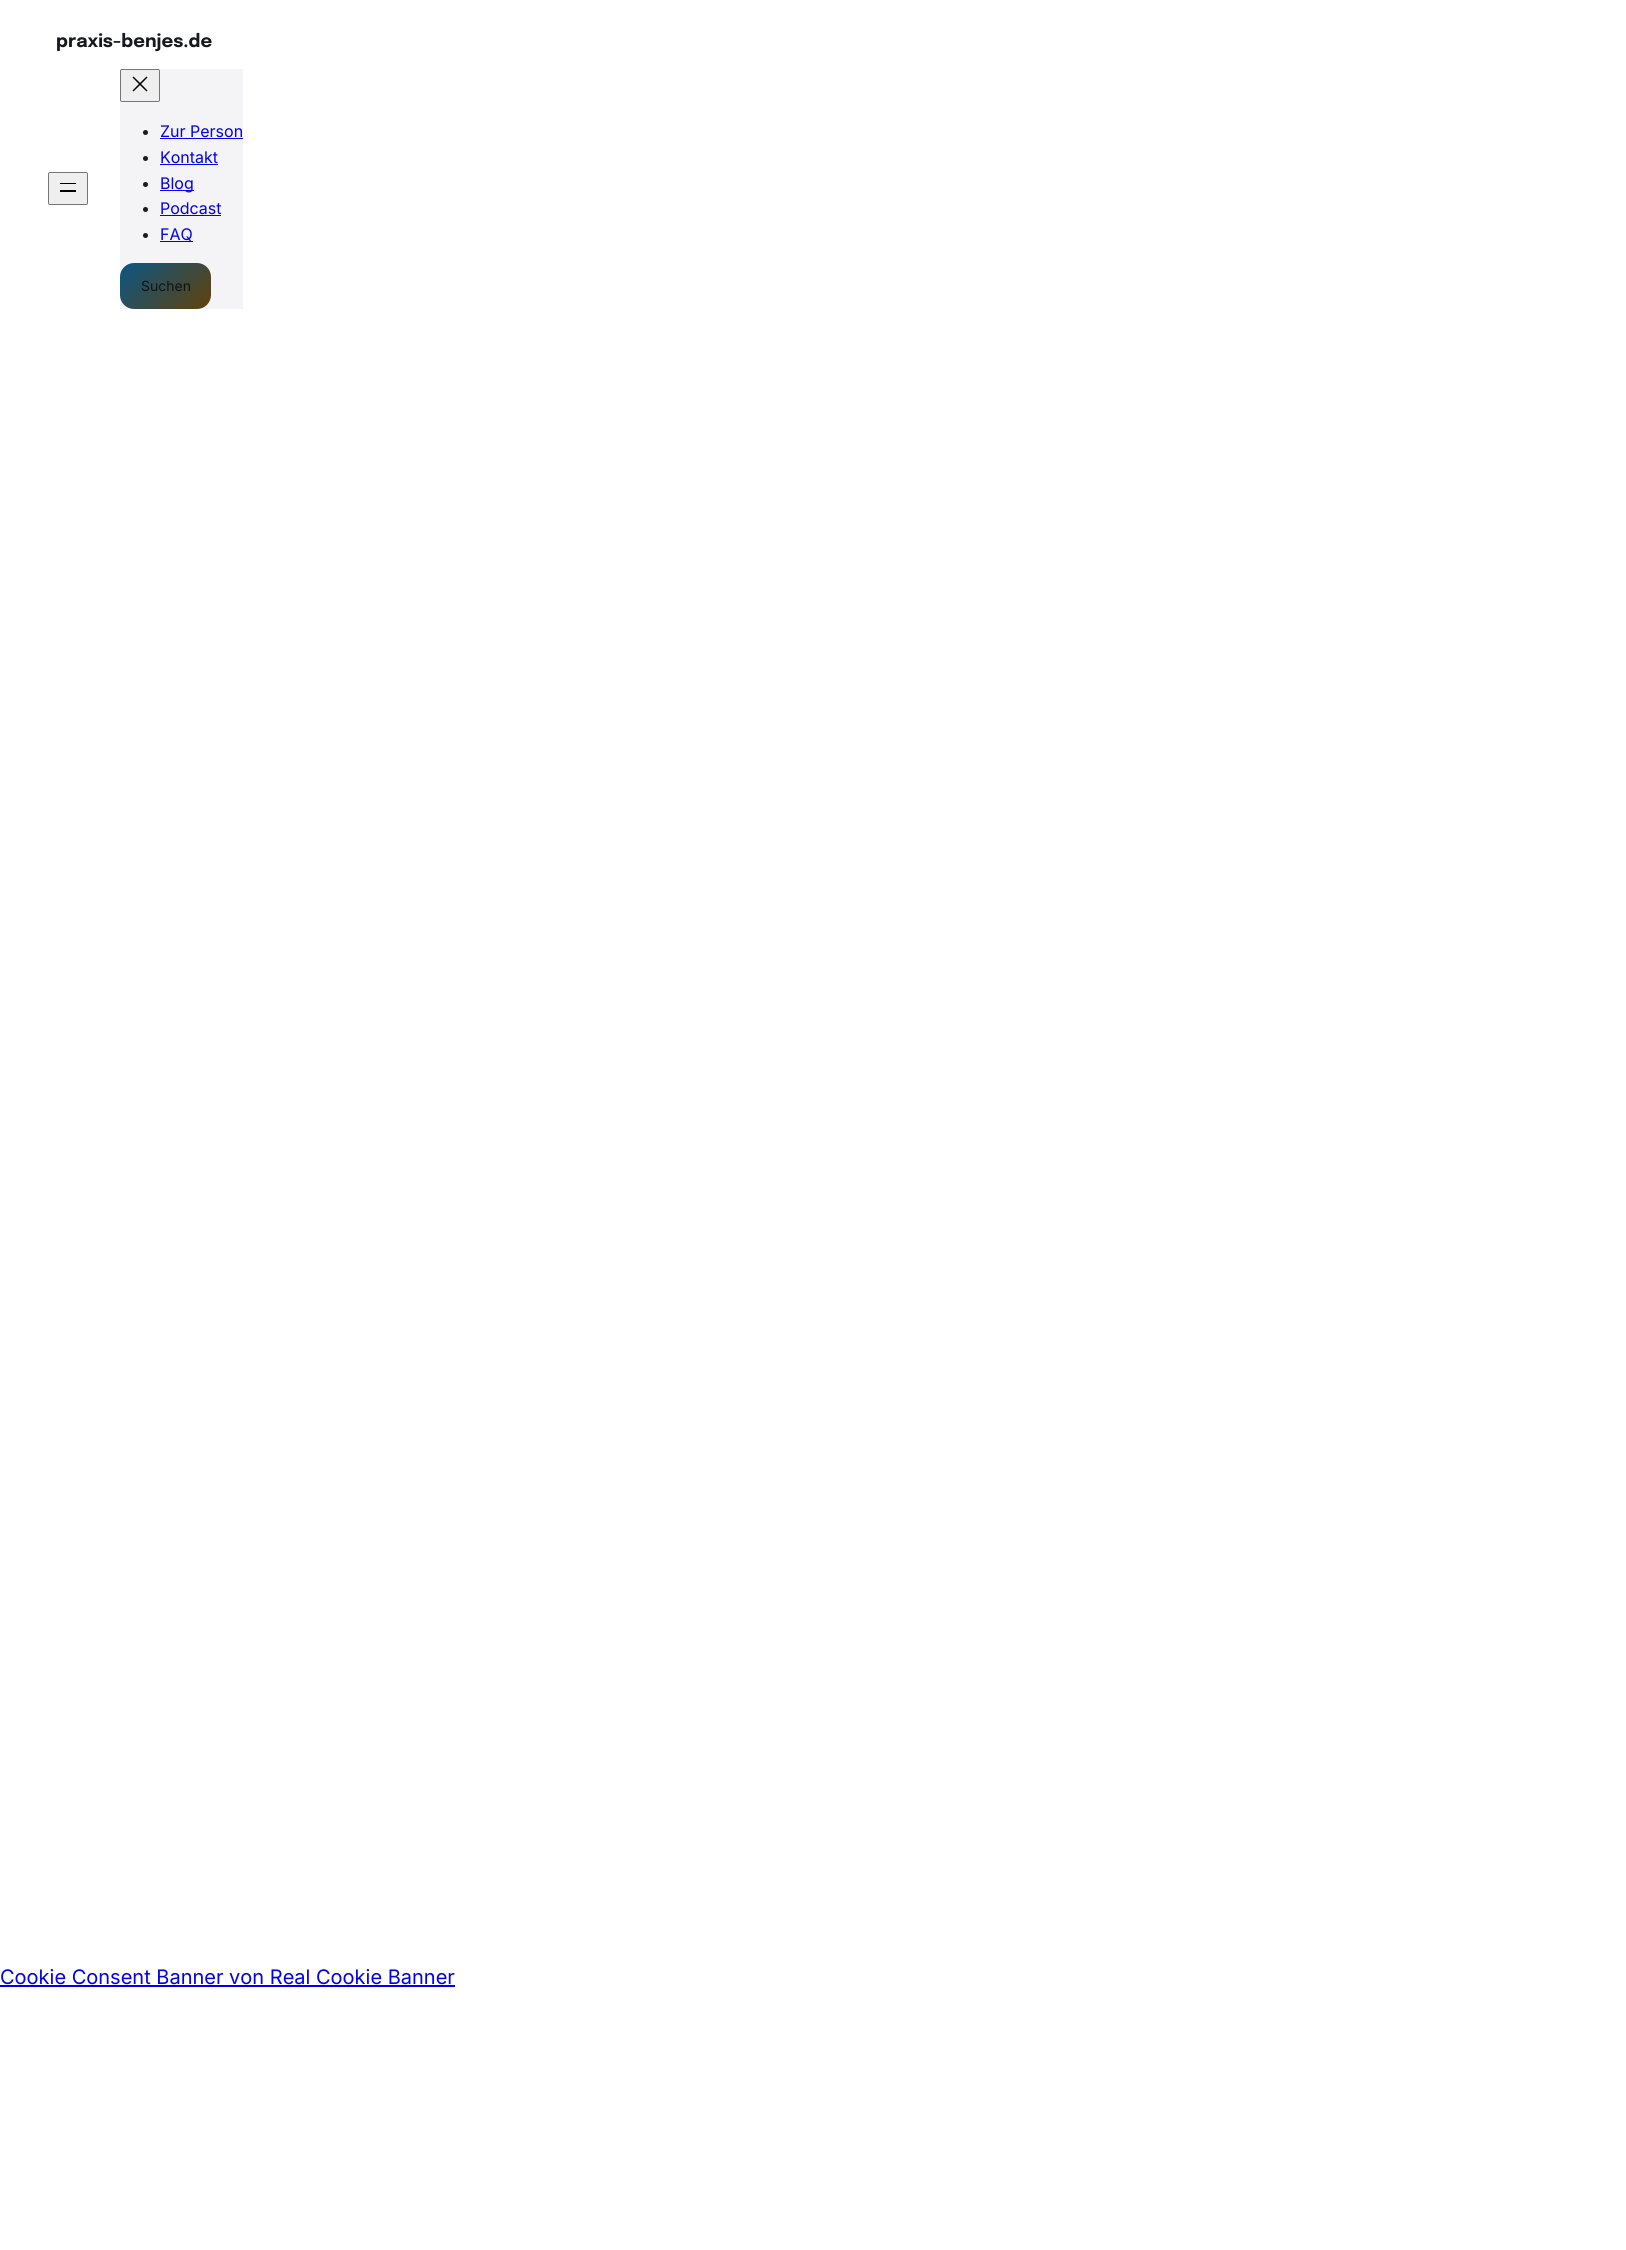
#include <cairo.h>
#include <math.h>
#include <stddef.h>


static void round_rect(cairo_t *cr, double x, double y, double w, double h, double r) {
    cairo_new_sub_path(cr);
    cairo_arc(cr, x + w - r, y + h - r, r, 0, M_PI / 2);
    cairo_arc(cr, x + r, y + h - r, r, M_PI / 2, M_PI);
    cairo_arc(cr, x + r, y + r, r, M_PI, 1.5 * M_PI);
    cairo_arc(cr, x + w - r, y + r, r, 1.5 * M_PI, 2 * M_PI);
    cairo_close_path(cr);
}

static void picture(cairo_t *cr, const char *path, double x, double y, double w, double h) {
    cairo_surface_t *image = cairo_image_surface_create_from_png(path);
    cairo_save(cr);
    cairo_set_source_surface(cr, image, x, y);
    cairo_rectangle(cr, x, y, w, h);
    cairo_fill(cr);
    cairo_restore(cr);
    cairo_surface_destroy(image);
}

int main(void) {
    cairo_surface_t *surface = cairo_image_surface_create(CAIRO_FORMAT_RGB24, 1626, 2250);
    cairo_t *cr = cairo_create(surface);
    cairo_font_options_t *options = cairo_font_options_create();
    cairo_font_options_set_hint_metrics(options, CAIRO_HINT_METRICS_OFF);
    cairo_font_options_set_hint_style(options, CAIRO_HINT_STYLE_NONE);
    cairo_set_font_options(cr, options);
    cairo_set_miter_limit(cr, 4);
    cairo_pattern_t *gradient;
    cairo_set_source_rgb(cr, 1, 1, 1);
    cairo_paint(cr);
    cairo_select_font_face(cr, "Epilogue", CAIRO_FONT_SLANT_NORMAL, CAIRO_FONT_WEIGHT_BOLD);
    cairo_set_font_size(cr, 18);
    cairo_set_source_rgb(cr, 0.09, 0.098, 0.122);
    cairo_move_to(cr, 56, 47);
    cairo_show_text(cr, "praxis-benjes.de");
    cairo_set_source_rgb(cr, 0.937, 0.937, 0.937);
    round_rect(cr, 48.5, 172.5, 39, 32, 1.5);
    cairo_fill_preserve(cr);
    cairo_set_source_rgb(cr, 0.463, 0.463, 0.463);
    cairo_set_line_width(cr, 1);
    cairo_stroke(cr);
    cairo_set_source_rgb(cr, 0, 0, 0);
    cairo_rectangle(cr, 60, 183, 16, 1);
    cairo_fill(cr);
    cairo_rectangle(cr, 60, 190, 16, 2);
    cairo_fill(cr);
    cairo_set_source_rgb(cr, 0.957, 0.957, 0.961);
    cairo_rectangle(cr, 120, 69, 123, 240);
    cairo_fill(cr);
    cairo_set_source_rgb(cr, 0.937, 0.937, 0.937);
    round_rect(cr, 120.5, 69.5, 39, 32, 1.5);
    cairo_fill_preserve(cr);
    cairo_set_source_rgb(cr, 0.463, 0.463, 0.463);
    cairo_stroke(cr);
    picture(cr, "img1.png", 132, 76, 16, 16);
    cairo_set_source_rgb(cr, 0.11, 0.11, 0.118);
    cairo_arc(cr, 145.5, 132.5, 2.5, 0, 2 * M_PI);
    cairo_fill(cr);
    cairo_select_font_face(cr, "Inter", CAIRO_FONT_SLANT_NORMAL, CAIRO_FONT_WEIGHT_NORMAL);
    cairo_set_font_size(cr, 16);
    cairo_set_source_rgb(cr, 0, 0, 0.933);
    cairo_move_to(cr, 160, 137);
    cairo_show_text(cr, "Zur Person");
    cairo_rectangle(cr, 160, 138, 83, 1);
    cairo_fill(cr);
    cairo_set_source_rgb(cr, 0.11, 0.11, 0.118);
    cairo_arc(cr, 145.5, 158.5, 2.5, 0, 2 * M_PI);
    cairo_fill(cr);
    cairo_set_source_rgb(cr, 0, 0, 0.933);
    cairo_move_to(cr, 160, 163);
    cairo_show_text(cr, "Kontakt");
    cairo_rectangle(cr, 160, 164, 58, 1);
    cairo_fill(cr);
    cairo_set_source_rgb(cr, 0.11, 0.11, 0.118);
    cairo_arc(cr, 145.5, 184.5, 2.5, 0, 2 * M_PI);
    cairo_fill(cr);
    cairo_set_source_rgb(cr, 0, 0, 0.933);
    cairo_rectangle(cr, 160, 190, 34, 1);
    cairo_fill(cr);
    cairo_move_to(cr, 160, 189);
    cairo_show_text(cr, "Blog");
    cairo_set_source_rgb(cr, 0.11, 0.11, 0.118);
    cairo_new_path(cr);
    cairo_arc(cr, 145.5, 209.5, 2.5, 0, 2 * M_PI);
    cairo_fill(cr);
    cairo_set_source_rgb(cr, 0, 0, 0.933);
    cairo_move_to(cr, 160, 214);
    cairo_show_text(cr, "Podcast");
    cairo_rectangle(cr, 160, 215, 61, 1);
    cairo_fill(cr);
    cairo_set_source_rgb(cr, 0.11, 0.11, 0.118);
    cairo_arc(cr, 145.5, 235.5, 2.5, 0, 2 * M_PI);
    cairo_fill(cr);
    cairo_set_source_rgb(cr, 0, 0, 0.933);
    cairo_rectangle(cr, 160, 241, 33, 1);
    cairo_fill(cr);
    cairo_move_to(cr, 160, 240);
    cairo_show_text(cr, "FAQ");
    gradient = cairo_pattern_create_linear(131, 252, 200, 320);
    cairo_pattern_add_color_stop_rgba(gradient, 0, 0.043, 0.337, 0.518, 1);
    cairo_pattern_add_color_stop_rgba(gradient, 1, 0.38, 0.255, 0.043, 1);
    cairo_set_source(cr, gradient);
    cairo_pattern_destroy(gradient);
    round_rect(cr, 120, 263, 91, 46, 14);
    cairo_fill(cr);
    cairo_set_font_size(cr, 14);
    cairo_set_source_rgb(cr, 0.071, 0.071, 0.071);
    cairo_move_to(cr, 141, 291);
    cairo_show_text(cr, "Suchen");
    cairo_set_font_size(cr, 20);
    cairo_set_source_rgb(cr, 0, 0, 0.933);
    cairo_move_to(cr, 0, 1984);
    cairo_show_text(cr, "Cookie Consent Banner von Real Cookie Banner");
    cairo_rectangle(cr, 0, 1985, 455, 2);
    cairo_fill(cr);
    cairo_surface_write_to_png(surface, "page.png");
    cairo_font_options_destroy(options);
    cairo_destroy(cr);
    cairo_surface_destroy(surface);
    return 0;
}
